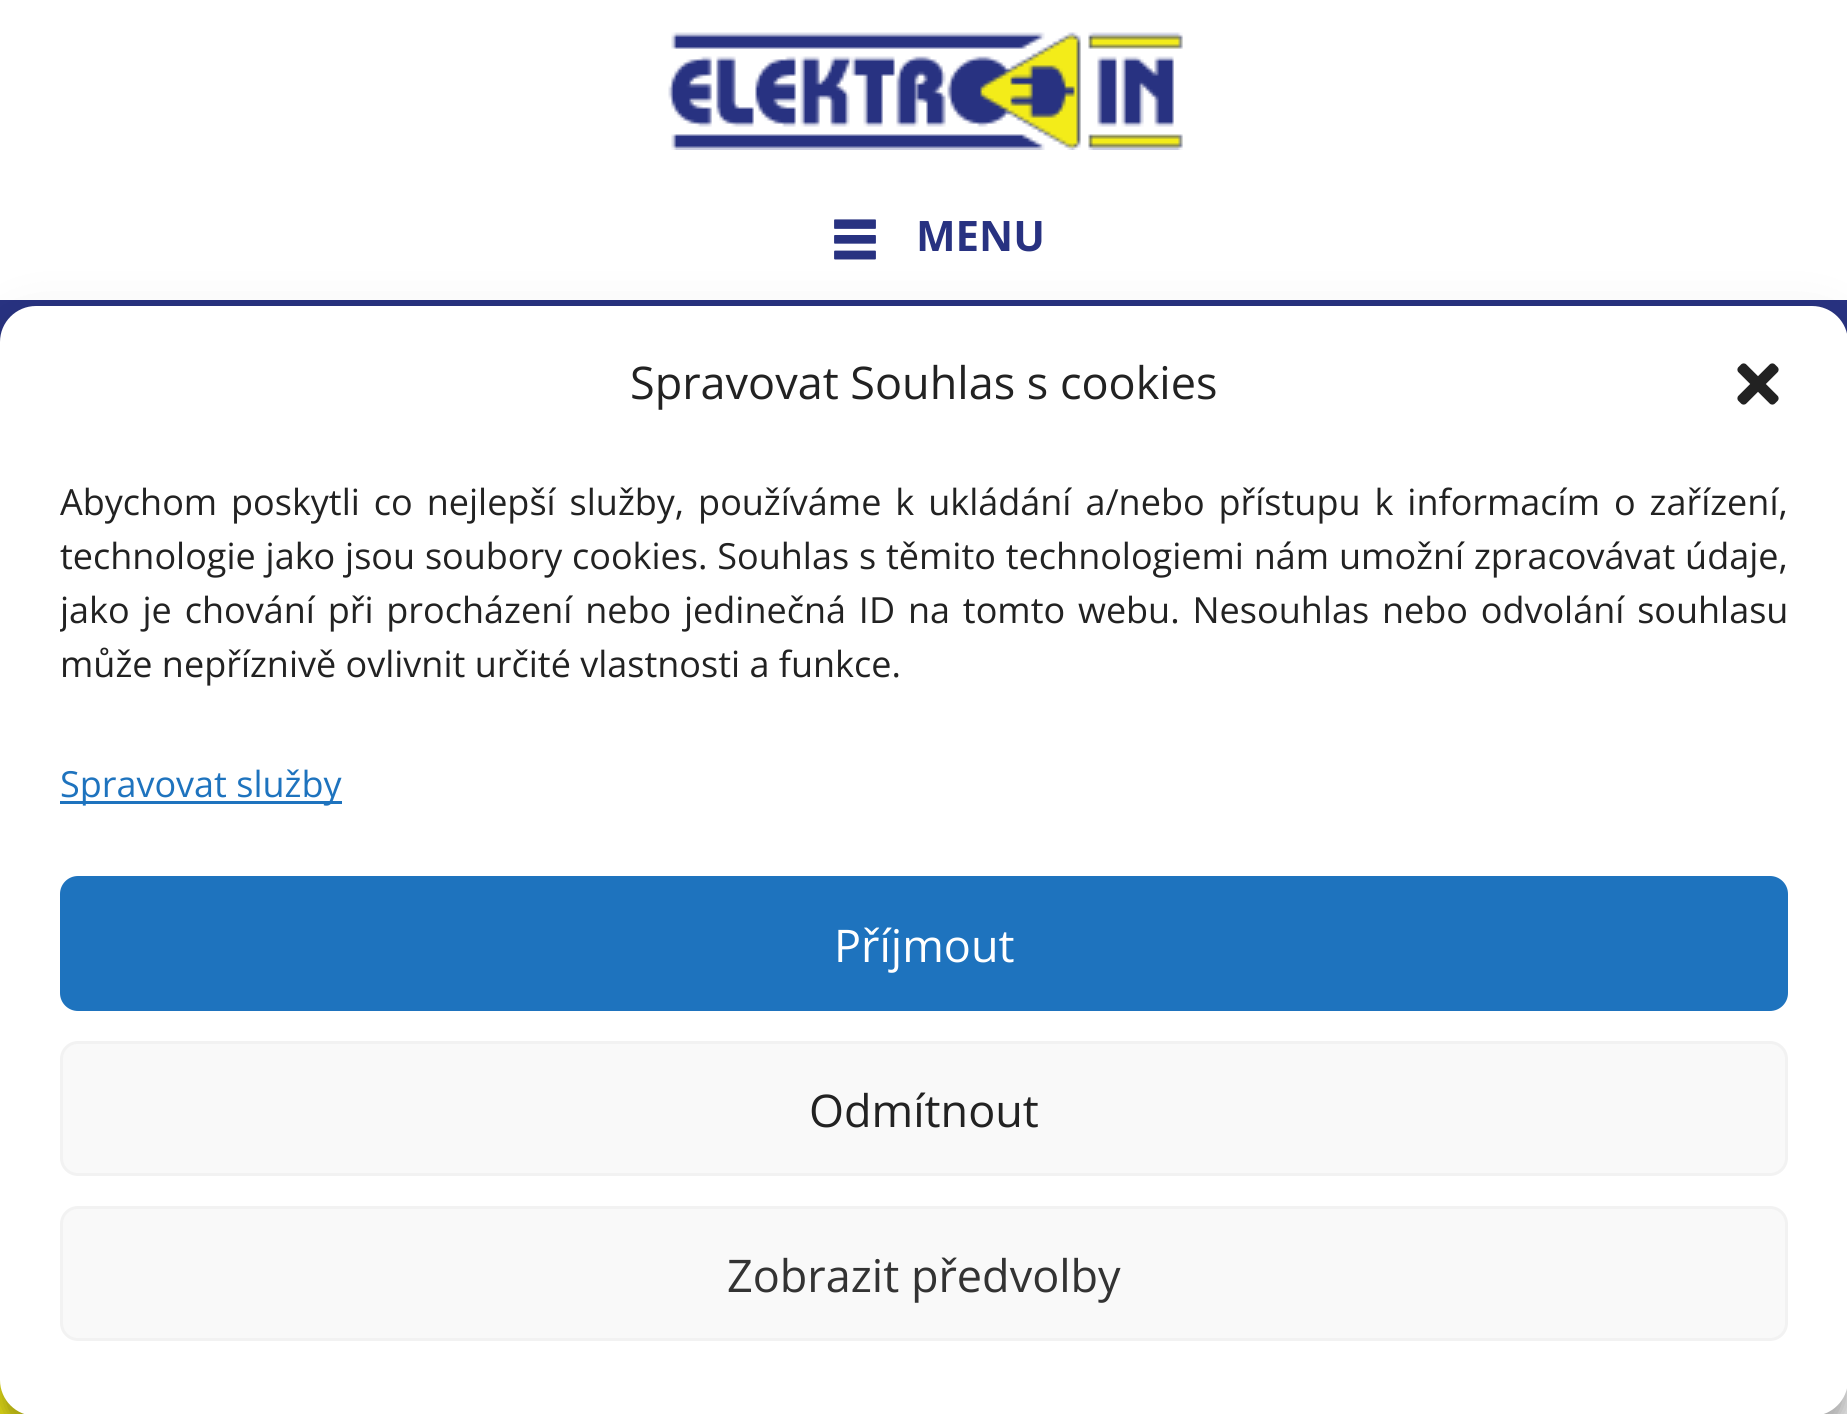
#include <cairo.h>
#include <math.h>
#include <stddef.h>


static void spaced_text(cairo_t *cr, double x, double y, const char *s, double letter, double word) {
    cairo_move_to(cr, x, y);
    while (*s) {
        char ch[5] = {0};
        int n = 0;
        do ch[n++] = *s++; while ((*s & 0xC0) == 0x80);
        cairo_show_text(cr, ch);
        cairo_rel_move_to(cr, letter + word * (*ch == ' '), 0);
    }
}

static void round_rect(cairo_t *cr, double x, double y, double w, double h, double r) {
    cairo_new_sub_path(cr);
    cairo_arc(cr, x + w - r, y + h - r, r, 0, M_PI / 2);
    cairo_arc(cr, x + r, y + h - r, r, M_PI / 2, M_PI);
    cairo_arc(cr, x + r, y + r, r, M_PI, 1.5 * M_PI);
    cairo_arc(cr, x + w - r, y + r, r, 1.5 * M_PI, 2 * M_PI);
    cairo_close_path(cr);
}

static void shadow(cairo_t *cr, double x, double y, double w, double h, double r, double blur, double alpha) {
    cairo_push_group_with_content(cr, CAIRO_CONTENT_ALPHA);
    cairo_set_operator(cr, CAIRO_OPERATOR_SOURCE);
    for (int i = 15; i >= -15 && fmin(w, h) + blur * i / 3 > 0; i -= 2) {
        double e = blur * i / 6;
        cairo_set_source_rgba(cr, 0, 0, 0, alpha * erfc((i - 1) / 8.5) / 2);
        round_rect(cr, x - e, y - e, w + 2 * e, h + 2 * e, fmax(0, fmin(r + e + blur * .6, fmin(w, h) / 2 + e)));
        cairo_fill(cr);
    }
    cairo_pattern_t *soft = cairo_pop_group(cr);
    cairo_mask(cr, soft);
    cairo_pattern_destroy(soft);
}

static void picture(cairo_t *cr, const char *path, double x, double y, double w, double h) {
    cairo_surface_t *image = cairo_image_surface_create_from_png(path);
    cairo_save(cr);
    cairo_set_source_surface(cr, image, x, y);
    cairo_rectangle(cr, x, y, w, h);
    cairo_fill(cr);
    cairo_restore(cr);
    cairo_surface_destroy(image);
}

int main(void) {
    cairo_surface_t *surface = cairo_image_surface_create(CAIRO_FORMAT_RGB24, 1847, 1414);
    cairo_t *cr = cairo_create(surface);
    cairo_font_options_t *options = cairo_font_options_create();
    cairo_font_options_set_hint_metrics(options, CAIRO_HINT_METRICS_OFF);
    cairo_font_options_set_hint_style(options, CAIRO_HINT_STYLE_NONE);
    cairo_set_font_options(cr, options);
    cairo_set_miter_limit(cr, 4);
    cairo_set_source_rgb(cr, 1, 1, 1);
    cairo_paint(cr);
    picture(cr, "img1.png", 668, 32, 515, 118);
    picture(cr, "img2.png", 834, 219, 42, 41);
    cairo_select_font_face(cr, "Open Sans", CAIRO_FONT_SLANT_NORMAL, CAIRO_FONT_WEIGHT_BOLD);
    cairo_set_font_size(cr, 42);
    cairo_set_source_rgb(cr, 0.157, 0.196, 0.506);
    cairo_move_to(cr, 916, 251);
    cairo_show_text(cr, "MENU");
    cairo_rectangle(cr, 0, 300, 1847, 42);
    cairo_fill(cr);
    cairo_set_source_rgb(cr, 0.953, 0.925, 0.098);
    cairo_new_path(cr);
    cairo_move_to(cr, 0, 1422);
    cairo_line_to(cr, 0, 1308);
    cairo_line_to(cr, 45, 1308);
    cairo_line_to(cr, 45, 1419);
    cairo_close_path(cr);
    cairo_fill(cr);
    cairo_set_source_rgb(cr, 0, 0, 0);
    shadow(cr, 0, 324, 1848, 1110, 36, 9, 0.23);
    shadow(cr, 0, 336, 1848, 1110, 36, 30, 0.19);
    cairo_set_source_rgb(cr, 1, 1, 1);
    round_rect(cr, 0, 306, 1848, 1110, 36);
    cairo_fill(cr);
    cairo_select_font_face(cr, "Open Sans", CAIRO_FONT_SLANT_NORMAL, CAIRO_FONT_WEIGHT_NORMAL);
    cairo_set_font_size(cr, 45);
    cairo_set_source_rgb(cr, 0.133, 0.133, 0.133);
    cairo_move_to(cr, 630, 399);
    cairo_show_text(cr, "Spravovat Souhlas s cookies");
    picture(cr, "img3.png", 1737, 363, 42, 42);
    cairo_set_font_size(cr, 36);
    spaced_text(cr, 60, 515, "Abychom poskytli co nejlepší služby, používáme k ukládání a/nebo přístupu k informacím o zařízení,", 0, 4.6);
    spaced_text(cr, 60, 569, "technologie jako jsou soubory cookies. Souhlas s těmito technologiemi nám umožní zpracovávat údaje,", 0, 0.5);
    cairo_save(cr);
    cairo_rectangle(cr, 60, 477, 1728, 246);
    cairo_clip(cr);
    spaced_text(cr, 60, 623, "jako je chování při procházení nebo jedinečná ID na tomto webu. Nesouhlas nebo odvolání souhlasu", 0, 3.5);
    cairo_restore(cr);
    cairo_move_to(cr, 60, 677);
    cairo_show_text(cr, "může nepříznivě ovlivnit určité vlastnosti a funkce.");
    cairo_set_source_rgb(cr, 0.118, 0.451, 0.745);
    cairo_rectangle(cr, 60, 801, 282, 3);
    cairo_fill(cr);
    cairo_move_to(cr, 60, 797);
    cairo_show_text(cr, "Spravovat služby");
    round_rect(cr, 61.5, 877.5, 1725, 132, 16.5);
    cairo_fill_preserve(cr);
    cairo_set_line_width(cr, 3);
    cairo_stroke(cr);
    cairo_set_font_size(cr, 45);
    cairo_set_source_rgb(cr, 1, 1, 1);
    cairo_move_to(cr, 834, 962);
    cairo_show_text(cr, "Příjmout");
    cairo_set_source_rgb(cr, 0.976, 0.976, 0.976);
    round_rect(cr, 61.5, 1042.5, 1725, 132, 16.5);
    cairo_fill_preserve(cr);
    cairo_set_source_rgb(cr, 0.949, 0.949, 0.949);
    cairo_stroke(cr);
    cairo_set_source_rgb(cr, 0.133, 0.133, 0.133);
    cairo_move_to(cr, 809, 1127);
    cairo_show_text(cr, "Odmítnout");
    cairo_set_source_rgb(cr, 0.976, 0.976, 0.976);
    round_rect(cr, 61.5, 1207.5, 1725, 132, 16.5);
    cairo_fill_preserve(cr);
    cairo_set_source_rgb(cr, 0.949, 0.949, 0.949);
    cairo_stroke(cr);
    cairo_set_source_rgb(cr, 0.2, 0.2, 0.2);
    cairo_move_to(cr, 727, 1292);
    cairo_show_text(cr, "Zobrazit předvolby");
    cairo_surface_write_to_png(surface, "page.png");
    cairo_font_options_destroy(options);
    cairo_destroy(cr);
    cairo_surface_destroy(surface);
    return 0;
}
